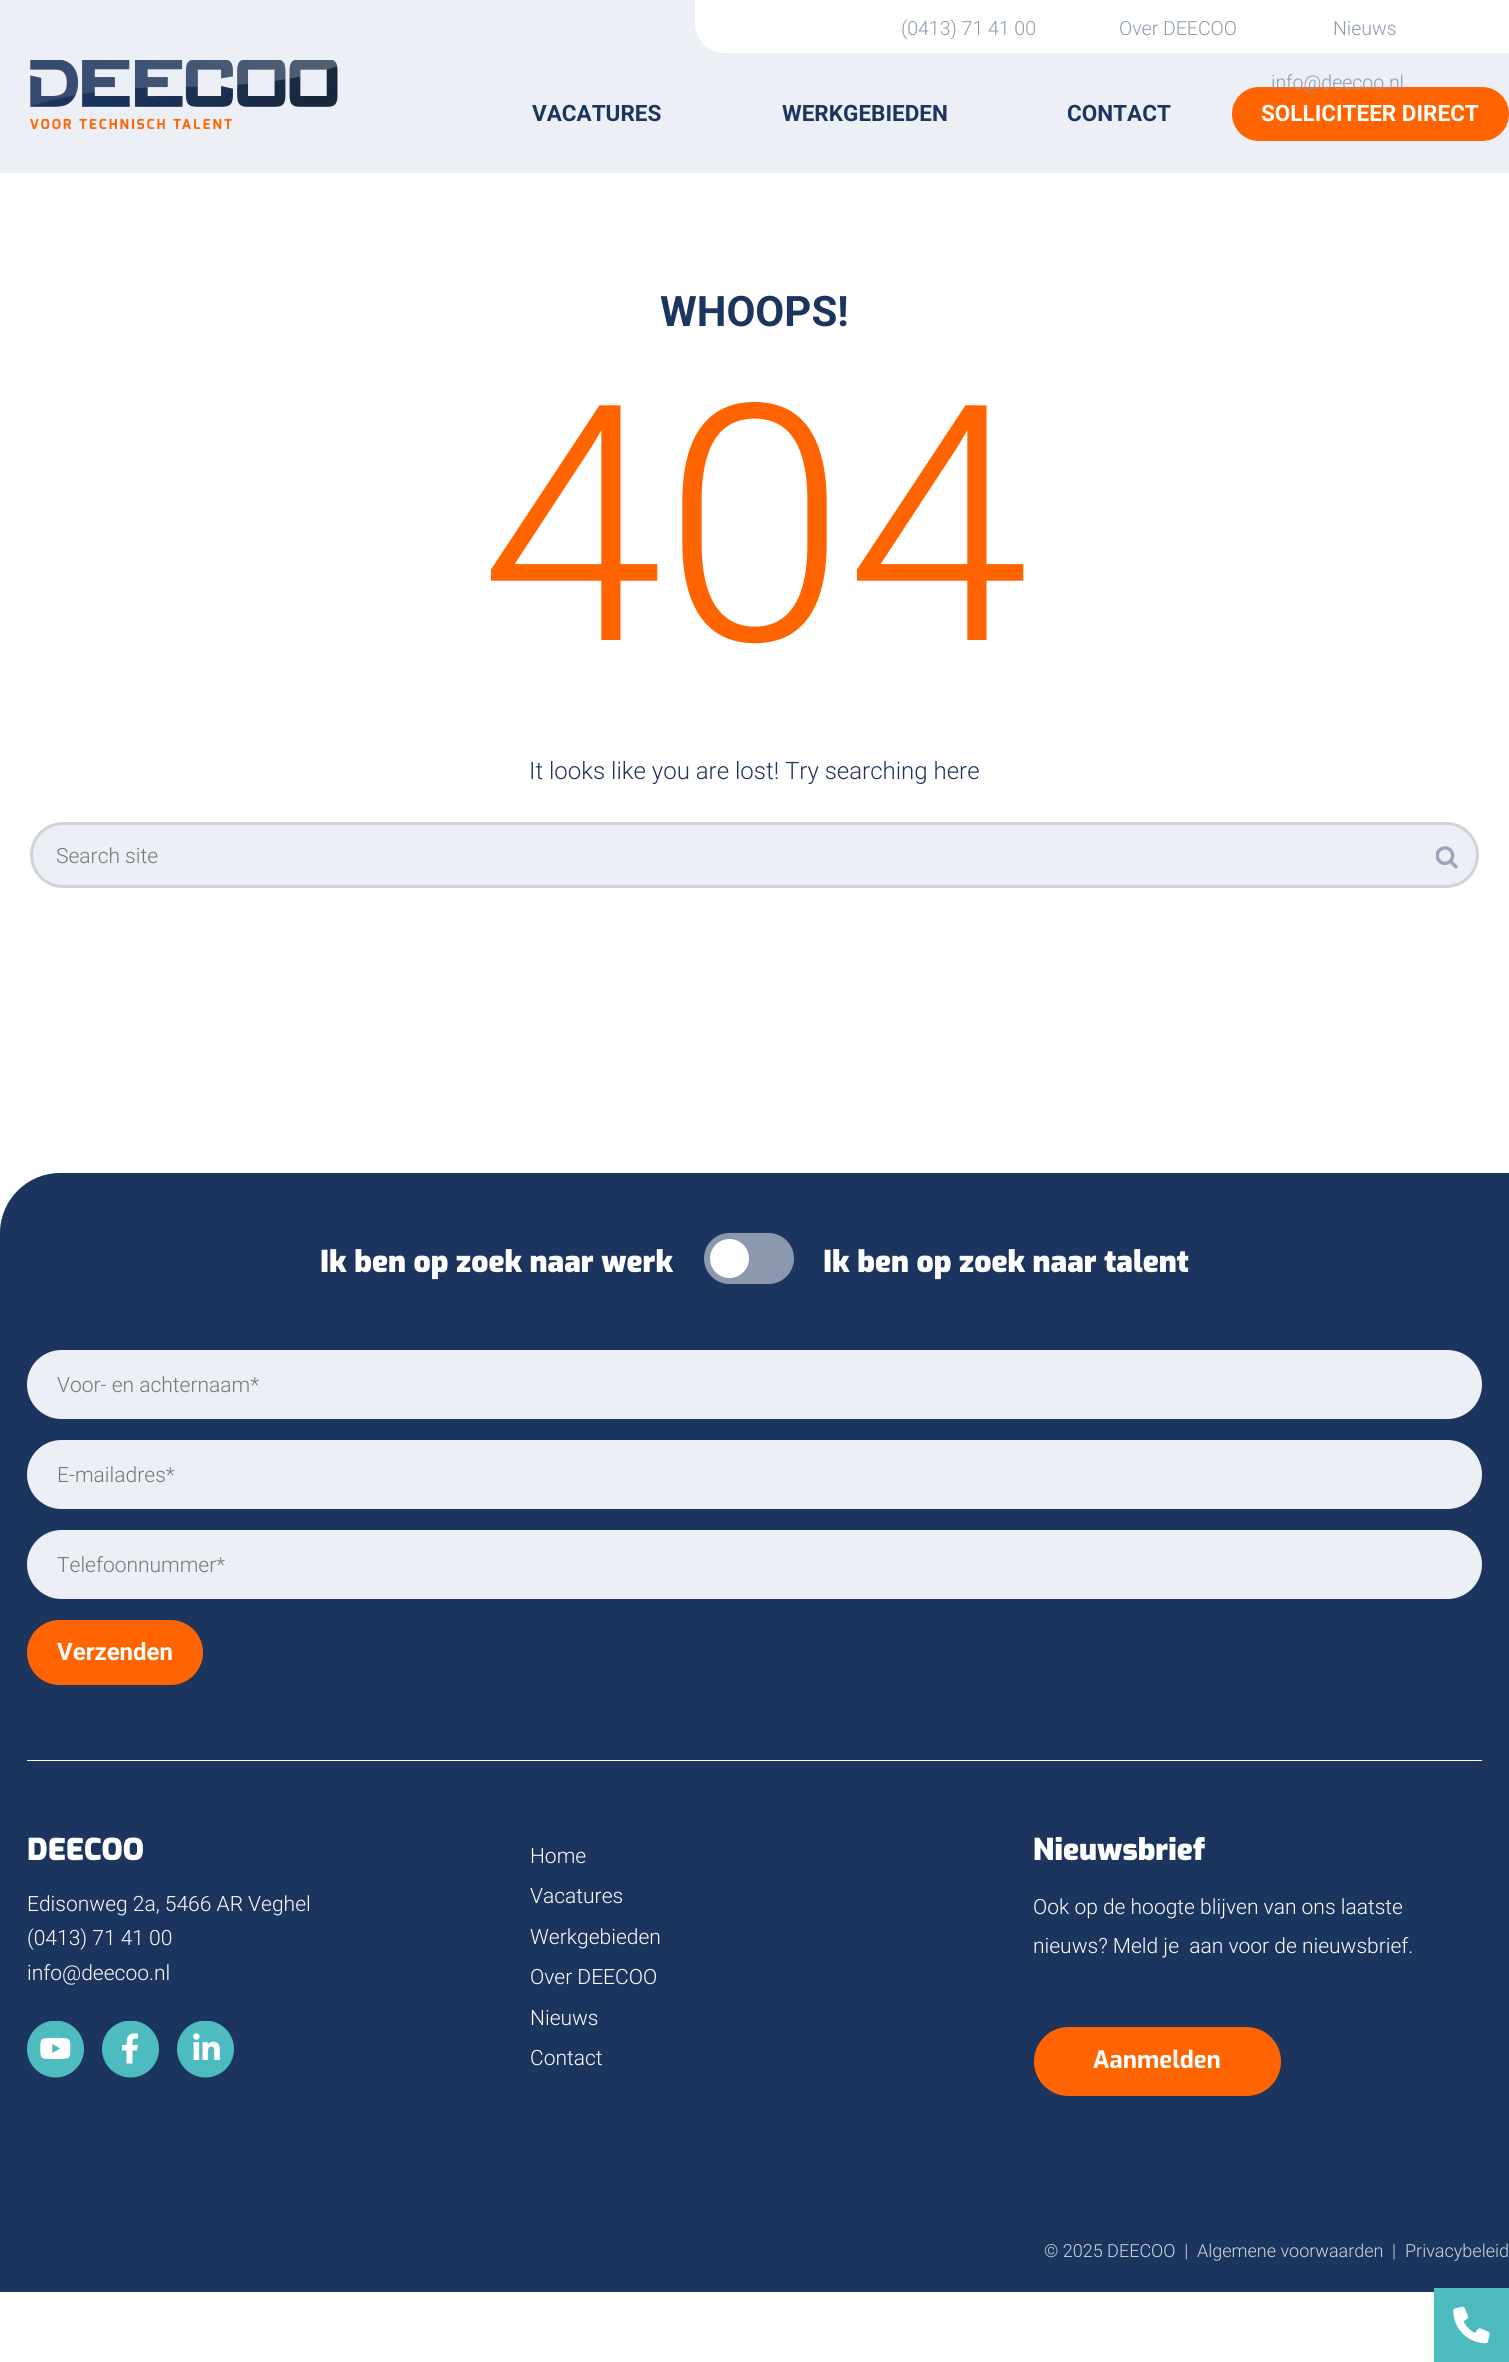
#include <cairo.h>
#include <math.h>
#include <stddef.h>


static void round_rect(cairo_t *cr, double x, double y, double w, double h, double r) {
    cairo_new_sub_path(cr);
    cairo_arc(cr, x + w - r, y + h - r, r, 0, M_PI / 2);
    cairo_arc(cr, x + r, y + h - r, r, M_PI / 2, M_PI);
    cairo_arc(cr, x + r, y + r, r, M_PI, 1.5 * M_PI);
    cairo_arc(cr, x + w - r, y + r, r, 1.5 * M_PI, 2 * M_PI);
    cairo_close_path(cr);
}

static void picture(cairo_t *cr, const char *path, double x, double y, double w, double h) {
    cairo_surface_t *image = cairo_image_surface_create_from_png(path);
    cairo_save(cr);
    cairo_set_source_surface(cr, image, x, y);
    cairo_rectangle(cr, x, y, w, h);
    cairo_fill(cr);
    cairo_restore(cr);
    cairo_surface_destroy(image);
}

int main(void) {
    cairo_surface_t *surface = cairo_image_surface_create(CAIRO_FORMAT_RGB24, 1509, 2362);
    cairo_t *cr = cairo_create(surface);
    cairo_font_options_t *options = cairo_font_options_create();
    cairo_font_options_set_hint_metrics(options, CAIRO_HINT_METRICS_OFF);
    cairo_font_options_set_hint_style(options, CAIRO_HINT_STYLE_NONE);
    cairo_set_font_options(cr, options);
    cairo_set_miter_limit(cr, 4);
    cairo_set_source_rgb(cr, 1, 1, 1);
    cairo_paint(cr);
    cairo_set_source_rgb(cr, 0.929, 0.937, 0.961);
    cairo_rectangle(cr, 0, 0, 725, 53);
    cairo_fill(cr);
    cairo_set_source_rgb(cr, 1, 1, 1);
    cairo_new_path(cr);
    cairo_move_to(cr, 695, 0);
    cairo_line_to(cr, 1509, 0);
    cairo_line_to(cr, 1509, 53);
    cairo_line_to(cr, 725, 53);
    cairo_curve_to(cr, 708.5, 53, 695, 39.5, 695, 23);
    cairo_close_path(cr);
    cairo_fill(cr);
    cairo_select_font_face(cr, "Roboto Light", CAIRO_FONT_SLANT_NORMAL, CAIRO_FONT_WEIGHT_NORMAL);
    cairo_set_font_size(cr, 19.5);
    cairo_set_source_rgb(cr, 0.545, 0.596, 0.682);
    cairo_move_to(cr, 901, 35);
    cairo_show_text(cr, "(0413) 71 41 00");
    cairo_move_to(cr, 1119, 35);
    cairo_show_text(cr, "Over DEECOO");
    cairo_move_to(cr, 1333, 35);
    cairo_show_text(cr, "Nieuws");
    cairo_set_source_rgb(cr, 0.929, 0.937, 0.961);
    cairo_rectangle(cr, 0, 53, 1509, 120);
    cairo_fill(cr);
    cairo_set_source_rgb(cr, 1, 0.392, 0);
    round_rect(cr, 1232, 87, 277, 54, 27);
    cairo_fill(cr);
    cairo_set_source_rgb(cr, 0.545, 0.596, 0.682);
    cairo_move_to(cr, 1271, 89);
    cairo_show_text(cr, "info@deecoo.nl");
    picture(cr, "img1.png", 30, 60, 308, 70);
    cairo_select_font_face(cr, "Roboto", CAIRO_FONT_SLANT_NORMAL, CAIRO_FONT_WEIGHT_BOLD);
    cairo_set_font_size(cr, 22.5);
    cairo_set_source_rgb(cr, 0.11, 0.208, 0.369);
    cairo_move_to(cr, 532, 121);
    cairo_show_text(cr, "VACATURES");
    cairo_move_to(cr, 782, 121);
    cairo_show_text(cr, "WERKGEBIEDEN");
    cairo_move_to(cr, 1067, 121);
    cairo_show_text(cr, "CONTACT");
    cairo_set_source_rgb(cr, 1, 1, 1);
    cairo_move_to(cr, 1261, 121);
    cairo_show_text(cr, "SOLLICITEER DIRECT");
    cairo_set_font_size(cr, 42);
    cairo_set_source_rgb(cr, 0.11, 0.208, 0.369);
    cairo_move_to(cr, 660, 326);
    cairo_show_text(cr, "WHOOPS!");
    cairo_select_font_face(cr, "Roboto Light", CAIRO_FONT_SLANT_NORMAL, CAIRO_FONT_WEIGHT_NORMAL);
    cairo_set_font_size(cr, 330);
    cairo_set_source_rgb(cr, 1, 0.392, 0);
    cairo_move_to(cr, 480, 640);
    cairo_show_text(cr, "404");
    cairo_set_font_size(cr, 24);
    cairo_set_source_rgb(cr, 0.11, 0.208, 0.369);
    cairo_move_to(cr, 529, 779);
    cairo_show_text(cr, "It looks like you are lost! Try searching here");
    cairo_set_source_rgb(cr, 0.929, 0.937, 0.961);
    round_rect(cr, 30, 822, 1449, 66, 33);
    cairo_fill(cr);
    round_rect(cr, 31.5, 823.5, 1446, 63, 31.5);
    cairo_set_source_rgba(cr, 0, 0, 0, 0.12);
    cairo_set_line_width(cr, 3);
    cairo_stroke(cr);
    cairo_set_font_size(cr, 21);
    cairo_set_source_rgb(cr, 0.459, 0.459, 0.459);
    cairo_move_to(cr, 56, 863);
    cairo_show_text(cr, "Search site");
    picture(cr, "img2.png", 1436, 846, 22, 23);
    cairo_set_source_rgb(cr, 0.11, 0.208, 0.369);
    cairo_new_path(cr);
    cairo_move_to(cr, 60, 1173);
    cairo_line_to(cr, 1509, 1173);
    cairo_line_to(cr, 1509, 1761);
    cairo_line_to(cr, 0, 1761);
    cairo_line_to(cr, 0, 1233);
    cairo_curve_to(cr, 0, 1200, 27, 1173, 60, 1173);
    cairo_close_path(cr);
    cairo_fill(cr);
    cairo_set_source_rgb(cr, 1, 1, 1);
    cairo_rectangle(cr, 27, 1760, 1455, 1);
    cairo_fill(cr);
    cairo_select_font_face(cr, "Exo Black", CAIRO_FONT_SLANT_NORMAL, CAIRO_FONT_WEIGHT_NORMAL);
    cairo_set_font_size(cr, 30);
    cairo_move_to(cr, 320, 1272);
    cairo_show_text(cr, "Ik ben op zoek naar werk");
    cairo_set_source_rgb(cr, 0.545, 0.596, 0.682);
    round_rect(cr, 704, 1233, 90, 51, 25.5);
    cairo_fill(cr);
    cairo_set_source_rgb(cr, 1, 1, 1);
    cairo_arc(cr, 729.5, 1258.5, 19.5, 0, 2 * M_PI);
    cairo_fill(cr);
    cairo_move_to(cr, 823, 1272);
    cairo_show_text(cr, "Ik ben op zoek naar talent");
    cairo_set_source_rgb(cr, 0.929, 0.937, 0.961);
    round_rect(cr, 27, 1350, 1455, 69, 34.5);
    cairo_fill(cr);
    cairo_select_font_face(cr, "Roboto Light", CAIRO_FONT_SLANT_NORMAL, CAIRO_FONT_WEIGHT_NORMAL);
    cairo_set_font_size(cr, 21);
    cairo_set_source_rgb(cr, 0.459, 0.459, 0.459);
    cairo_move_to(cr, 57, 1392);
    cairo_show_text(cr, "Voor- en achternaam*");
    cairo_set_source_rgb(cr, 0.929, 0.937, 0.961);
    round_rect(cr, 27, 1440, 1455, 69, 34.5);
    cairo_fill(cr);
    cairo_set_source_rgb(cr, 0.459, 0.459, 0.459);
    cairo_move_to(cr, 57, 1482);
    cairo_show_text(cr, "E-mailadres*");
    cairo_set_source_rgb(cr, 0.929, 0.937, 0.961);
    round_rect(cr, 27, 1530, 1455, 69, 34.5);
    cairo_fill(cr);
    cairo_set_source_rgb(cr, 0.459, 0.459, 0.459);
    cairo_move_to(cr, 57, 1572);
    cairo_show_text(cr, "Telefoonnummer*");
    cairo_set_source_rgb(cr, 1, 0.392, 0);
    round_rect(cr, 27, 1620, 176, 65, 32.5);
    cairo_fill(cr);
    cairo_select_font_face(cr, "Roboto", CAIRO_FONT_SLANT_NORMAL, CAIRO_FONT_WEIGHT_BOLD);
    cairo_set_font_size(cr, 24);
    cairo_set_source_rgb(cr, 1, 1, 1);
    cairo_move_to(cr, 57, 1660);
    cairo_show_text(cr, "Verzenden");
    cairo_set_source_rgb(cr, 0.11, 0.208, 0.369);
    cairo_rectangle(cr, 0, 1761, 1509, 531);
    cairo_fill(cr);
    cairo_select_font_face(cr, "Exo Black", CAIRO_FONT_SLANT_NORMAL, CAIRO_FONT_WEIGHT_NORMAL);
    cairo_set_font_size(cr, 30);
    cairo_set_source_rgb(cr, 1, 1, 1);
    cairo_move_to(cr, 27, 1860);
    cairo_show_text(cr, "DEECOO");
    cairo_select_font_face(cr, "Roboto Light", CAIRO_FONT_SLANT_NORMAL, CAIRO_FONT_WEIGHT_NORMAL);
    cairo_set_font_size(cr, 21);
    cairo_move_to(cr, 27, 1911);
    cairo_show_text(cr, "Edisonweg 2a, 5466 AR Veghel");
    cairo_move_to(cr, 27, 1945);
    cairo_show_text(cr, "(0413) 71 41 00");
    cairo_move_to(cr, 27, 1980);
    cairo_show_text(cr, "info@deecoo.nl");
    picture(cr, "img3.png", 27, 2021, 57, 57);
    cairo_save(cr);
    cairo_rectangle(cr, 102, 2021, 57, 57);
    cairo_clip(cr);
    cairo_set_source_rgb(cr, 0.306, 0.733, 0.753);
    cairo_arc(cr, 130.5, 2049, 28.5, 0, 2 * M_PI);
    cairo_fill(cr);
    cairo_restore(cr);
    cairo_new_path(cr);
    cairo_move_to(cr, 132.5, 2050.5);
    cairo_line_to(cr, 132.5, 2063.5);
    cairo_line_to(cr, 126.5, 2063.5);
    cairo_line_to(cr, 126.5, 2050.5);
    cairo_line_to(cr, 122, 2050.5);
    cairo_line_to(cr, 122, 2045);
    cairo_line_to(cr, 126.5, 2045);
    cairo_line_to(cr, 127, 2039);
    cairo_curve_to(cr, 128, 2033, 133.5, 2033, 138, 2033.5);
    cairo_line_to(cr, 138, 2038.5);
    cairo_curve_to(cr, 132, 2038.5, 132.5, 2039.5, 132.5, 2045);
    cairo_line_to(cr, 138, 2045);
    cairo_line_to(cr, 137, 2050.5);
    cairo_close_path(cr);
    cairo_fill(cr);
    picture(cr, "img4.png", 177, 2021, 57, 57);
    cairo_move_to(cr, 530, 1863);
    cairo_show_text(cr, "Home");
    cairo_move_to(cr, 530, 1903);
    cairo_show_text(cr, "Vacatures");
    cairo_move_to(cr, 530, 1944);
    cairo_show_text(cr, "Werkgebieden");
    cairo_move_to(cr, 530, 1984);
    cairo_show_text(cr, "Over DEECOO");
    cairo_move_to(cr, 530, 2025);
    cairo_show_text(cr, "Nieuws");
    cairo_move_to(cr, 530, 2065);
    cairo_show_text(cr, "Contact");
    cairo_select_font_face(cr, "Exo Black", CAIRO_FONT_SLANT_NORMAL, CAIRO_FONT_WEIGHT_NORMAL);
    cairo_set_font_size(cr, 30);
    cairo_move_to(cr, 1033, 1860);
    cairo_show_text(cr, "Nieuwsbrief");
    cairo_select_font_face(cr, "Roboto Light", CAIRO_FONT_SLANT_NORMAL, CAIRO_FONT_WEIGHT_NORMAL);
    cairo_set_font_size(cr, 21);
    cairo_move_to(cr, 1033, 1914);
    cairo_show_text(cr, "Ook op de hoogte blijven van ons laatste");
    cairo_move_to(cr, 1033, 1953);
    cairo_show_text(cr, "nieuws? Meld je  aan voor de nieuwsbrief.");
    cairo_set_source_rgb(cr, 1, 0.392, 0);
    round_rect(cr, 1034, 2027, 247, 69, 34.5);
    cairo_fill(cr);
    cairo_select_font_face(cr, "Exo", CAIRO_FONT_SLANT_NORMAL, CAIRO_FONT_WEIGHT_BOLD);
    cairo_set_font_size(cr, 24);
    cairo_set_source_rgb(cr, 1, 1, 1);
    cairo_move_to(cr, 1093, 2068);
    cairo_show_text(cr, "Aanmelden");
    cairo_select_font_face(cr, "Roboto Light", CAIRO_FONT_SLANT_NORMAL, CAIRO_FONT_WEIGHT_NORMAL);
    cairo_set_font_size(cr, 18);
    cairo_set_source_rgb(cr, 0.824, 0.843, 0.875);
    cairo_move_to(cr, 1044, 2257);
    cairo_show_text(cr, "© 2025 DEECOO  |");
    cairo_move_to(cr, 1197, 2257);
    cairo_show_text(cr, "Algemene voorwaarden");
    cairo_move_to(cr, 1392, 2257);
    cairo_show_text(cr, "|");
    cairo_move_to(cr, 1405, 2257);
    cairo_show_text(cr, "Privacybeleid");
    picture(cr, "img5.png", 1434, 2288, 75, 74);
    cairo_surface_write_to_png(surface, "page.png");
    cairo_font_options_destroy(options);
    cairo_destroy(cr);
    cairo_surface_destroy(surface);
    return 0;
}
